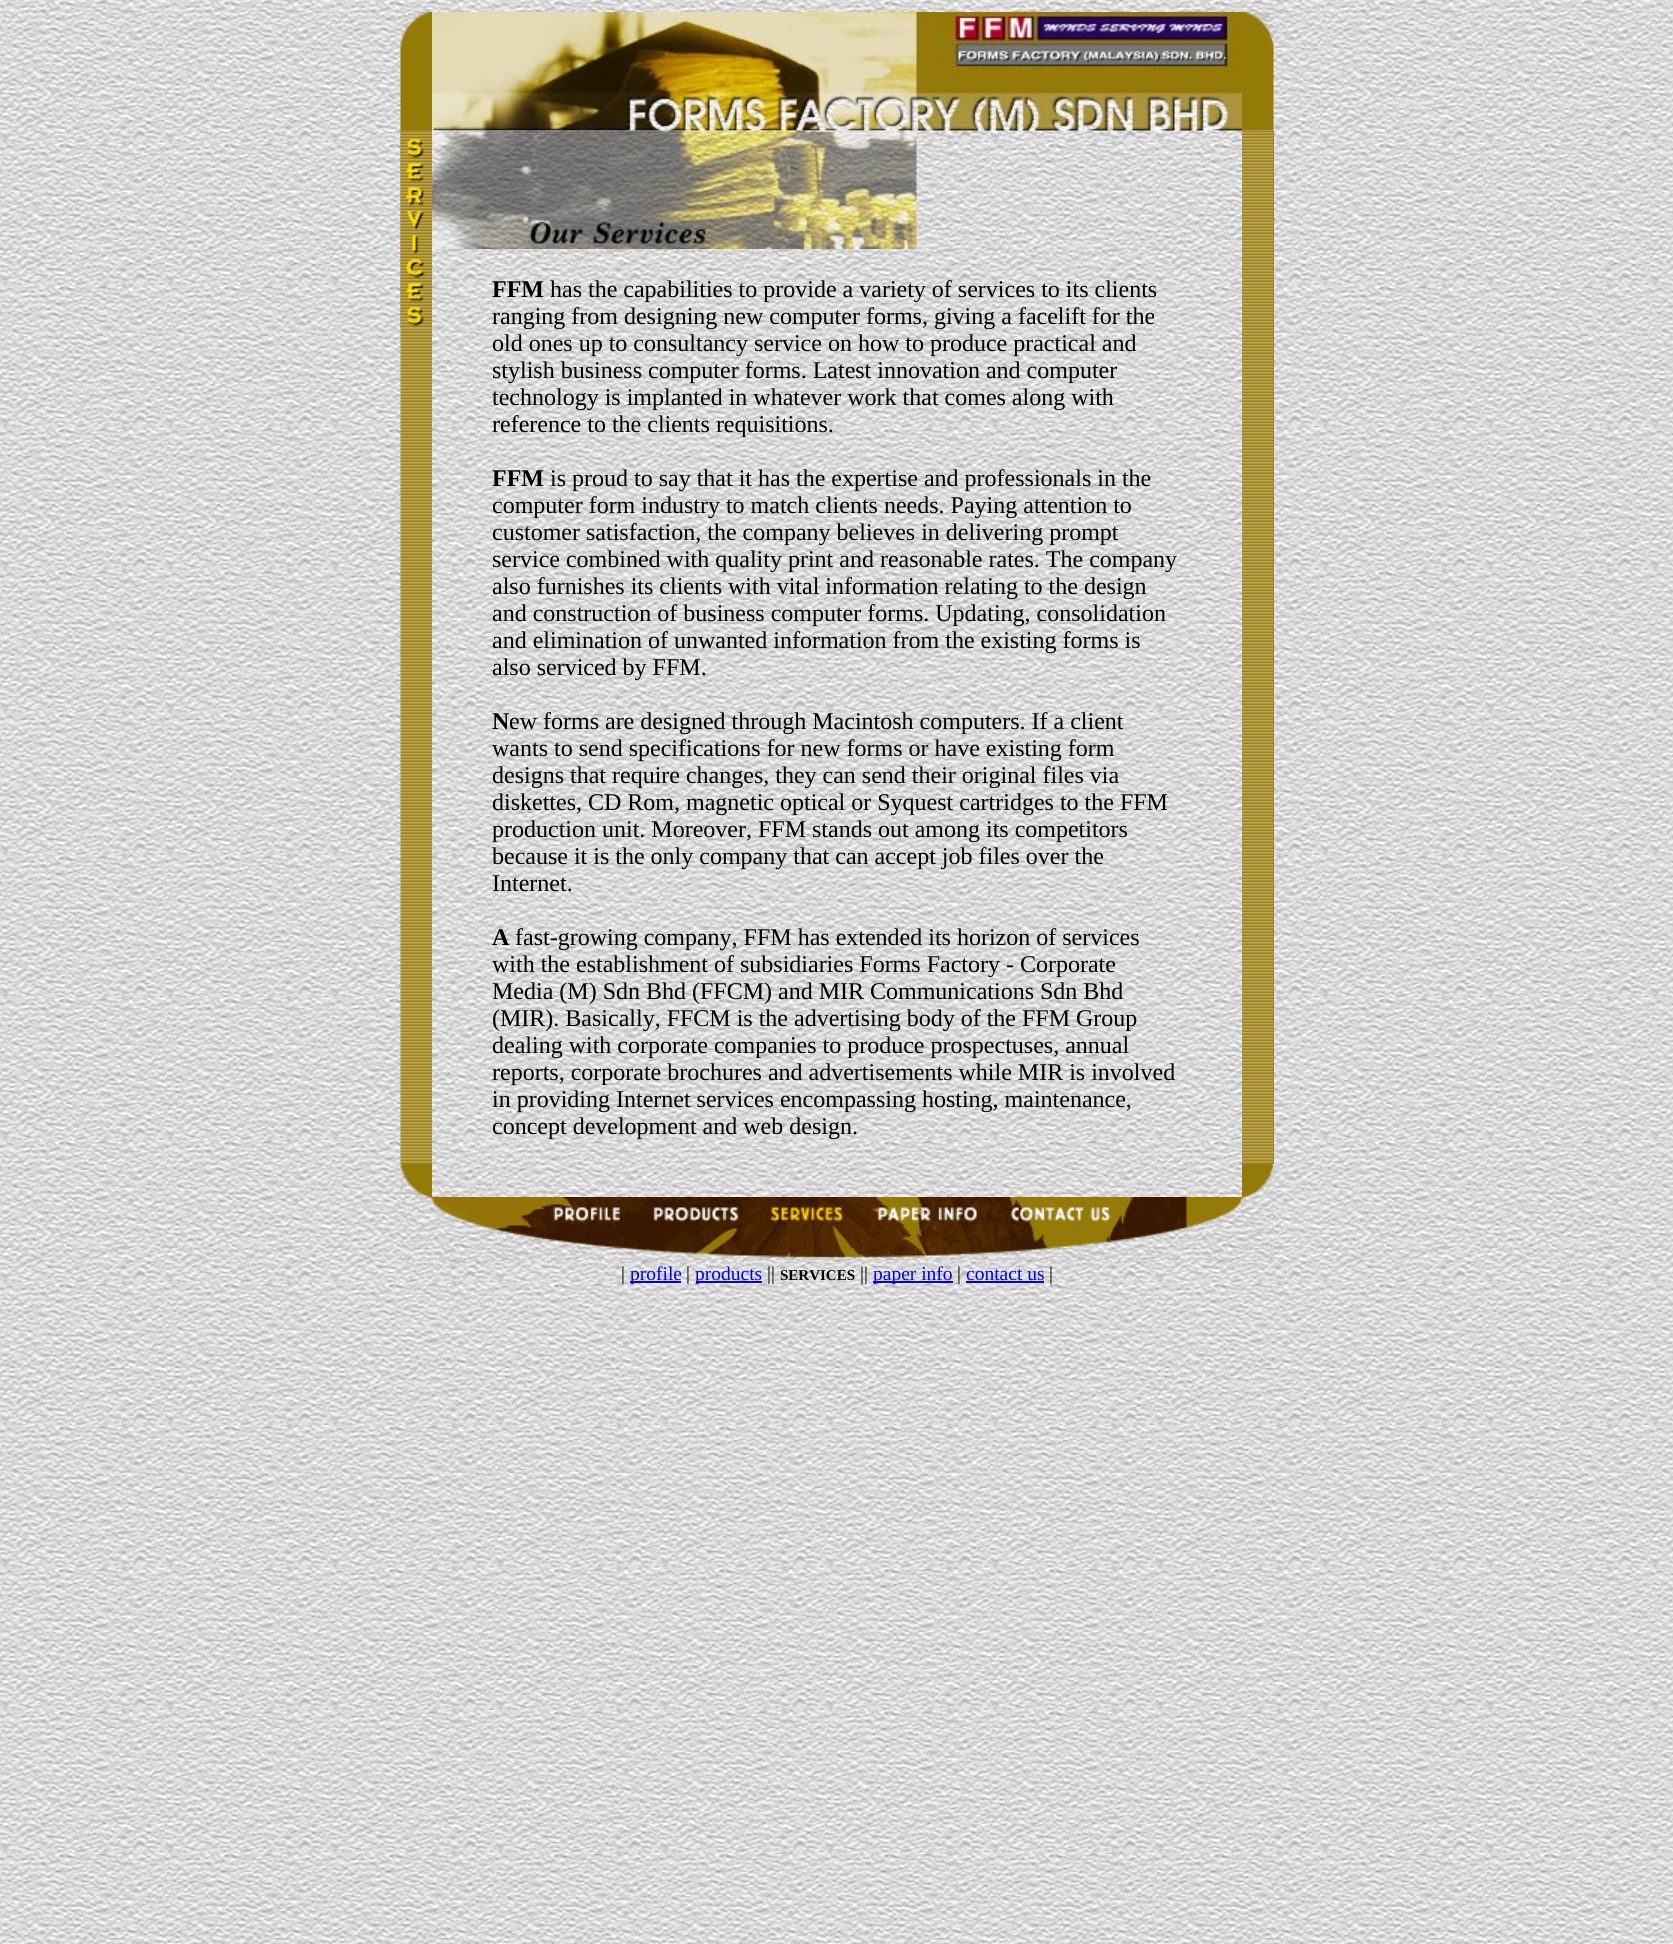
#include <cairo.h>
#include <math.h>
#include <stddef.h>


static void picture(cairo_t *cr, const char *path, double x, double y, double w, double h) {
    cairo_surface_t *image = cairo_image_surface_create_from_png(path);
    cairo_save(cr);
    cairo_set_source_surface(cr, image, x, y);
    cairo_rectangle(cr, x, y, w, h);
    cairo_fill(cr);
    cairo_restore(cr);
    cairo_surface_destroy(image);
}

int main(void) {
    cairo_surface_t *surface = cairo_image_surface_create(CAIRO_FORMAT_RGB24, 1673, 1944);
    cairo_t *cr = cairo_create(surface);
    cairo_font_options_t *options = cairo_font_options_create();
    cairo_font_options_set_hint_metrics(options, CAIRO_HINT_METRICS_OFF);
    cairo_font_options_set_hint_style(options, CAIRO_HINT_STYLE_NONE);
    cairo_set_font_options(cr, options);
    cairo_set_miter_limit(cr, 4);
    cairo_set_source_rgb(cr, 1, 1, 1);
    cairo_paint(cr);
    picture(cr, "img1.png", 0, 0, 1673, 1944);
    picture(cr, "img5.png", 400, 130, 32, 1034);
    picture(cr, "img2.png", 400, 12, 32, 119);
    picture(cr, "img3.png", 432, 12, 810, 119);
    cairo_set_source_rgb(cr, 0.6, 0.455, 0.004);
    cairo_rectangle(cr, 1273, 131, 1, 1033);
    cairo_fill(cr);
    picture(cr, "img8.png", 1242, 130, 32, 1034);
    picture(cr, "img4.png", 1242, 12, 32, 119);
    picture(cr, "img6.png", 400, 130, 32, 199);
    picture(cr, "img7.png", 432, 130, 485, 119);
    cairo_select_font_face(cr, "Liberation Serif", CAIRO_FONT_SLANT_NORMAL, CAIRO_FONT_WEIGHT_BOLD);
    cairo_set_font_size(cr, 24);
    cairo_set_source_rgb(cr, 0, 0, 0);
    cairo_move_to(cr, 492, 297);
    cairo_show_text(cr, "FFM");
    cairo_select_font_face(cr, "Liberation Serif", CAIRO_FONT_SLANT_NORMAL, CAIRO_FONT_WEIGHT_NORMAL);
    cairo_move_to(cr, 550, 297);
    cairo_show_text(cr, "has the capabilities to provide a variety of services to its clients");
    cairo_move_to(cr, 492, 324);
    cairo_show_text(cr, "ranging from designing new computer forms, giving a facelift for the");
    cairo_move_to(cr, 492, 351);
    cairo_show_text(cr, "old ones up to consultancy service on how to produce practical and");
    cairo_move_to(cr, 492, 378);
    cairo_show_text(cr, "stylish business computer forms. Latest innovation and computer");
    cairo_move_to(cr, 492, 405);
    cairo_show_text(cr, "technology is implanted in whatever work that comes along with");
    cairo_move_to(cr, 492, 432);
    cairo_show_text(cr, "reference to the clients requisitions.");
    cairo_select_font_face(cr, "Liberation Serif", CAIRO_FONT_SLANT_NORMAL, CAIRO_FONT_WEIGHT_BOLD);
    cairo_move_to(cr, 492, 486);
    cairo_show_text(cr, "FFM");
    cairo_select_font_face(cr, "Liberation Serif", CAIRO_FONT_SLANT_NORMAL, CAIRO_FONT_WEIGHT_NORMAL);
    cairo_move_to(cr, 550, 486);
    cairo_show_text(cr, "is proud to say that it has the expertise and professionals in the");
    cairo_move_to(cr, 492, 513);
    cairo_show_text(cr, "computer form industry to match clients needs. Paying attention to");
    cairo_move_to(cr, 492, 540);
    cairo_show_text(cr, "customer satisfaction, the company believes in delivering prompt");
    cairo_move_to(cr, 492, 567);
    cairo_show_text(cr, "service combined with quality print and reasonable rates. The company");
    cairo_move_to(cr, 492, 594);
    cairo_show_text(cr, "also furnishes its clients with vital information relating to the design");
    cairo_move_to(cr, 492, 621);
    cairo_show_text(cr, "and construction of business computer forms. Updating, consolidation");
    cairo_move_to(cr, 492, 648);
    cairo_show_text(cr, "and elimination of unwanted information from the existing forms is");
    cairo_move_to(cr, 492, 675);
    cairo_show_text(cr, "also serviced by FFM.");
    cairo_select_font_face(cr, "Liberation Serif", CAIRO_FONT_SLANT_NORMAL, CAIRO_FONT_WEIGHT_BOLD);
    cairo_move_to(cr, 492, 729);
    cairo_show_text(cr, "N");
    cairo_select_font_face(cr, "Liberation Serif", CAIRO_FONT_SLANT_NORMAL, CAIRO_FONT_WEIGHT_NORMAL);
    cairo_move_to(cr, 509, 729);
    cairo_show_text(cr, "ew forms are designed through Macintosh computers. If a client");
    cairo_move_to(cr, 492, 756);
    cairo_show_text(cr, "wants to send specifications for new forms or have existing form");
    cairo_move_to(cr, 492, 783);
    cairo_show_text(cr, "designs that require changes, they can send their original files via");
    cairo_move_to(cr, 492, 810);
    cairo_show_text(cr, "diskettes, CD Rom, magnetic optical or Syquest cartridges to the FFM");
    cairo_move_to(cr, 492, 837);
    cairo_show_text(cr, "production unit. Moreover, FFM stands out among its competitors");
    cairo_move_to(cr, 492, 864);
    cairo_show_text(cr, "because it is the only company that can accept job files over the");
    cairo_move_to(cr, 492, 891);
    cairo_show_text(cr, "Internet.");
    cairo_select_font_face(cr, "Liberation Serif", CAIRO_FONT_SLANT_NORMAL, CAIRO_FONT_WEIGHT_BOLD);
    cairo_move_to(cr, 492, 945);
    cairo_show_text(cr, "A");
    cairo_select_font_face(cr, "Liberation Serif", CAIRO_FONT_SLANT_NORMAL, CAIRO_FONT_WEIGHT_NORMAL);
    cairo_move_to(cr, 515, 945);
    cairo_show_text(cr, "fast-growing company, FFM has extended its horizon of services");
    cairo_move_to(cr, 492, 972);
    cairo_show_text(cr, "with the establishment of subsidiaries Forms Factory - Corporate");
    cairo_move_to(cr, 492, 999);
    cairo_show_text(cr, "Media (M) Sdn Bhd (FFCM) and MIR Communications Sdn Bhd");
    cairo_move_to(cr, 492, 1026);
    cairo_show_text(cr, "(MIR). Basically, FFCM is the advertising body of the FFM Group");
    cairo_move_to(cr, 492, 1053);
    cairo_show_text(cr, "dealing with corporate companies to produce prospectuses, annual");
    cairo_move_to(cr, 492, 1080);
    cairo_show_text(cr, "reports, corporate brochures and advertisements while MIR is involved");
    cairo_move_to(cr, 492, 1107);
    cairo_show_text(cr, "in providing Internet services encompassing hosting, maintenance,");
    cairo_move_to(cr, 492, 1134);
    cairo_show_text(cr, "concept development and web design.");
    picture(cr, "img9.png", 400, 1164, 32, 33);
    picture(cr, "img10.png", 1242, 1164, 32, 33);
    picture(cr, "img11.png", 400, 1197, 874, 65);
    cairo_set_font_size(cr, 19.5);
    cairo_move_to(cr, 621, 1280);
    cairo_show_text(cr, "|");
    cairo_set_source_rgb(cr, 0, 0, 0.933);
    cairo_rectangle(cr, 630, 1281, 51, 2);
    cairo_fill(cr);
    cairo_move_to(cr, 630, 1280);
    cairo_show_text(cr, "profile");
    cairo_set_source_rgb(cr, 0, 0, 0);
    cairo_move_to(cr, 686, 1280);
    cairo_show_text(cr, "|");
    cairo_set_source_rgb(cr, 0, 0, 0.933);
    cairo_rectangle(cr, 696, 1281, 66, 2);
    cairo_fill(cr);
    cairo_move_to(cr, 695, 1280);
    cairo_show_text(cr, "products");
    cairo_set_source_rgb(cr, 0, 0, 0);
    cairo_move_to(cr, 767, 1280);
    cairo_show_text(cr, "||");
    cairo_select_font_face(cr, "Liberation Serif", CAIRO_FONT_SLANT_NORMAL, CAIRO_FONT_WEIGHT_BOLD);
    cairo_set_font_size(cr, 15);
    cairo_move_to(cr, 780, 1280);
    cairo_show_text(cr, "SERVICES");
    cairo_select_font_face(cr, "Liberation Serif", CAIRO_FONT_SLANT_NORMAL, CAIRO_FONT_WEIGHT_NORMAL);
    cairo_set_font_size(cr, 19.5);
    cairo_move_to(cr, 860, 1280);
    cairo_show_text(cr, "||");
    cairo_set_source_rgb(cr, 0, 0, 0.933);
    cairo_rectangle(cr, 873, 1281, 80, 2);
    cairo_fill(cr);
    cairo_move_to(cr, 873, 1280);
    cairo_show_text(cr, "paper info");
    cairo_set_source_rgb(cr, 0, 0, 0);
    cairo_move_to(cr, 957, 1280);
    cairo_show_text(cr, "|");
    cairo_set_source_rgb(cr, 0, 0, 0.933);
    cairo_move_to(cr, 966, 1280);
    cairo_show_text(cr, "contact us");
    cairo_rectangle(cr, 966, 1281, 78, 2);
    cairo_fill(cr);
    cairo_set_source_rgb(cr, 0, 0, 0);
    cairo_move_to(cr, 1049, 1280);
    cairo_show_text(cr, "|");
    cairo_surface_write_to_png(surface, "page.png");
    cairo_font_options_destroy(options);
    cairo_destroy(cr);
    cairo_surface_destroy(surface);
    return 0;
}
